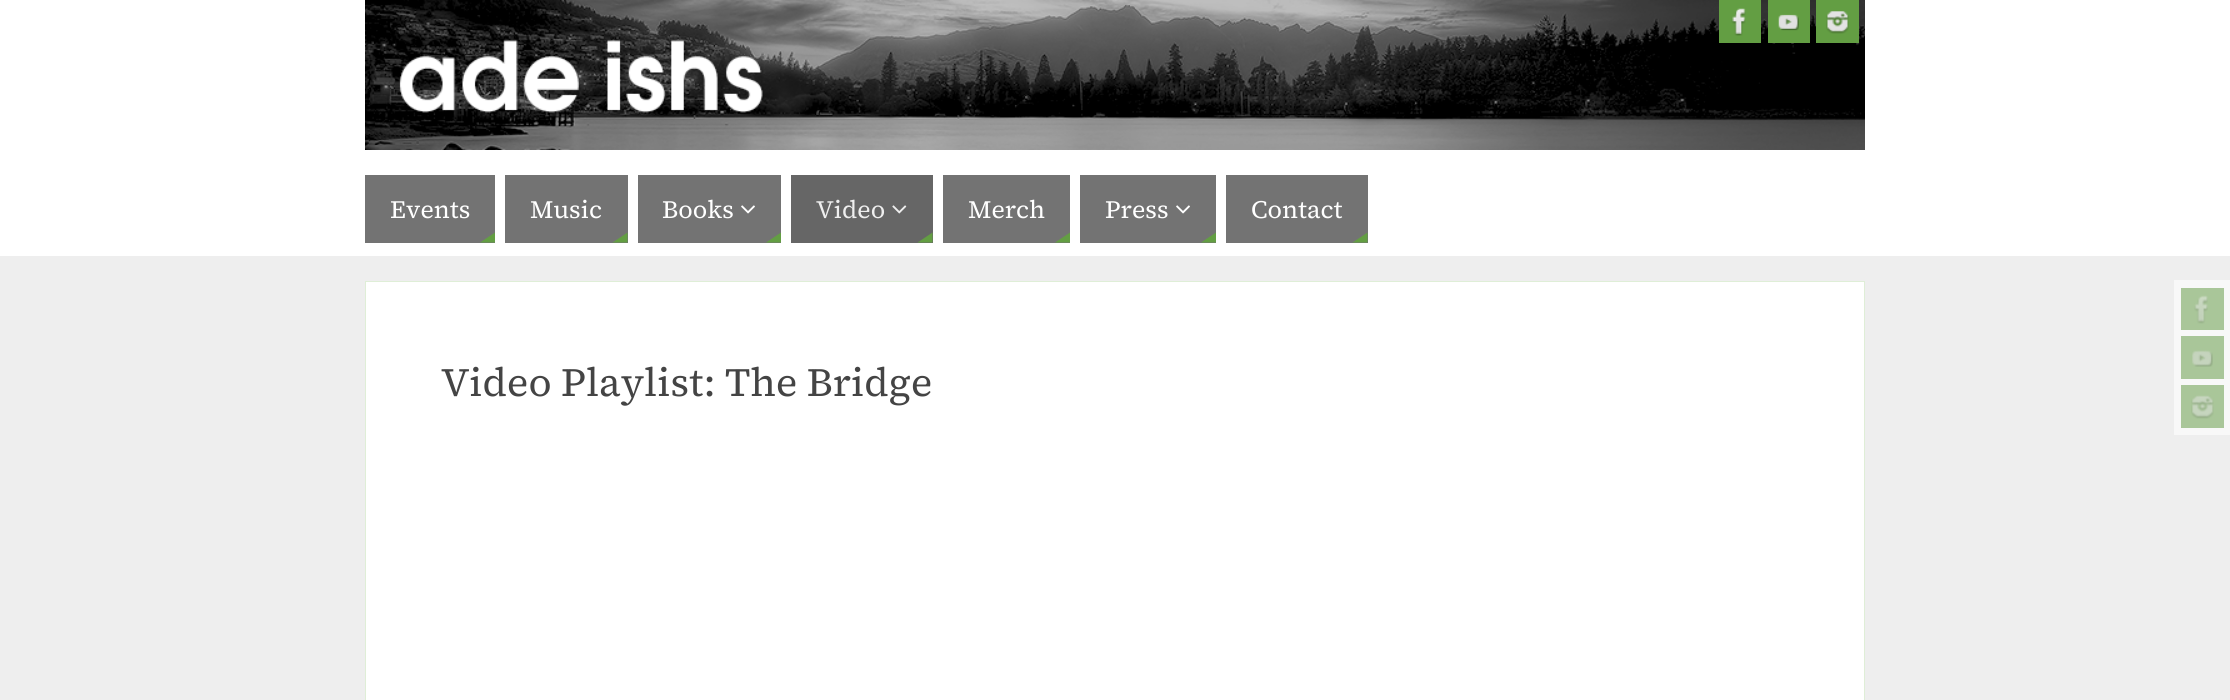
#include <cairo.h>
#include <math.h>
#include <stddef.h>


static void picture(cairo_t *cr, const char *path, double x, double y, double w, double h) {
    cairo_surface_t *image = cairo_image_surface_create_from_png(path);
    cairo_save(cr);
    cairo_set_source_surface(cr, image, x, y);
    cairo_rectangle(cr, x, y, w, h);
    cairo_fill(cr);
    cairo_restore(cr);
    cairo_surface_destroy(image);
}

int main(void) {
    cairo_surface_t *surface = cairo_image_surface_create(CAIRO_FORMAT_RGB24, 2230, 700);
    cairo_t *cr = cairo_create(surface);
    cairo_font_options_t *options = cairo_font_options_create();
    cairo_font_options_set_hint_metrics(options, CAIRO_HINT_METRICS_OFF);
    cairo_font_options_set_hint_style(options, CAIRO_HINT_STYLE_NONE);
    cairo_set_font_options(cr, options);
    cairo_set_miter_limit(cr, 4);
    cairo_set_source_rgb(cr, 0.933, 0.933, 0.933);
    cairo_paint(cr);
    cairo_set_source_rgb(cr, 1, 1, 1);
    cairo_rectangle(cr, 0, 0, 2230, 256);
    cairo_fill(cr);
    picture(cr, "img1.png", 365, 0, 1500, 150);
    cairo_set_source_rgb(cr, 0.388, 0.62, 0.263);
    cairo_rectangle(cr, 1719, 0, 42, 43);
    cairo_fill(cr);
    picture(cr, "img2.png", 1731, 8, 15, 28);
    cairo_rectangle(cr, 1768, 0, 42, 43);
    cairo_fill(cr);
    picture(cr, "img3.png", 1778, 14, 21, 17);
    cairo_rectangle(cr, 1816, 0, 43, 43);
    cairo_fill(cr);
    picture(cr, "img4.png", 1826, 11, 23, 23);
    cairo_set_source_rgb(cr, 0.451, 0.451, 0.451);
    cairo_rectangle(cr, 365, 175, 130, 68);
    cairo_fill(cr);
    cairo_select_font_face(cr, "Source Serif 4", CAIRO_FONT_SLANT_NORMAL, CAIRO_FONT_WEIGHT_NORMAL);
    cairo_set_font_size(cr, 25);
    cairo_set_source_rgb(cr, 1, 1, 1);
    cairo_move_to(cr, 390, 218);
    cairo_show_text(cr, "Events");
    cairo_set_source_rgb(cr, 0.388, 0.62, 0.263);
    cairo_new_path(cr);
    cairo_move_to(cr, 495, 242.5);
    cairo_line_to(cr, 480, 242.5);
    cairo_line_to(cr, 495, 232.5);
    cairo_close_path(cr);
    cairo_fill(cr);
    cairo_set_source_rgb(cr, 0.451, 0.451, 0.451);
    cairo_rectangle(cr, 505, 175, 123, 68);
    cairo_fill(cr);
    cairo_set_source_rgb(cr, 1, 1, 1);
    cairo_move_to(cr, 530, 218);
    cairo_show_text(cr, "Music");
    cairo_set_source_rgb(cr, 0.388, 0.62, 0.263);
    cairo_new_path(cr);
    cairo_move_to(cr, 627.5, 242.5);
    cairo_line_to(cr, 612.5, 242.5);
    cairo_line_to(cr, 627.5, 232.5);
    cairo_close_path(cr);
    cairo_fill(cr);
    cairo_set_source_rgb(cr, 0.451, 0.451, 0.451);
    cairo_rectangle(cr, 638, 175, 143, 68);
    cairo_fill(cr);
    cairo_set_source_rgb(cr, 1, 1, 1);
    cairo_move_to(cr, 662, 218);
    cairo_show_text(cr, "Books");
    picture(cr, "img5.png", 741, 205, 14, 9);
    cairo_set_source_rgb(cr, 0.388, 0.62, 0.263);
    cairo_new_path(cr);
    cairo_move_to(cr, 781, 242.5);
    cairo_line_to(cr, 766, 242.5);
    cairo_line_to(cr, 781, 232.5);
    cairo_close_path(cr);
    cairo_fill(cr);
    cairo_set_source_rgb(cr, 0.4, 0.4, 0.4);
    cairo_rectangle(cr, 791, 175, 142, 68);
    cairo_fill(cr);
    cairo_set_source_rgb(cr, 0.933, 0.933, 0.933);
    cairo_move_to(cr, 816, 218);
    cairo_show_text(cr, "Video");
    picture(cr, "img6.png", 892, 205, 15, 9);
    cairo_set_source_rgb(cr, 0.388, 0.62, 0.263);
    cairo_new_path(cr);
    cairo_move_to(cr, 932.5, 242.5);
    cairo_line_to(cr, 917.5, 242.5);
    cairo_line_to(cr, 932.5, 232.5);
    cairo_close_path(cr);
    cairo_fill(cr);
    cairo_set_source_rgb(cr, 0.451, 0.451, 0.451);
    cairo_rectangle(cr, 943, 175, 127, 68);
    cairo_fill(cr);
    cairo_set_source_rgb(cr, 1, 1, 1);
    cairo_move_to(cr, 968, 218);
    cairo_show_text(cr, "Merch");
    cairo_set_source_rgb(cr, 0.388, 0.62, 0.263);
    cairo_new_path(cr);
    cairo_move_to(cr, 1070, 242.5);
    cairo_line_to(cr, 1055, 242.5);
    cairo_line_to(cr, 1070, 232.5);
    cairo_close_path(cr);
    cairo_fill(cr);
    cairo_set_source_rgb(cr, 0.451, 0.451, 0.451);
    cairo_rectangle(cr, 1080, 175, 136, 68);
    cairo_fill(cr);
    cairo_set_source_rgb(cr, 1, 1, 1);
    cairo_move_to(cr, 1105, 218);
    cairo_show_text(cr, "Press");
    picture(cr, "img5.png", 1176, 205, 14, 9);
    cairo_set_source_rgb(cr, 0.388, 0.62, 0.263);
    cairo_new_path(cr);
    cairo_move_to(cr, 1216, 242.5);
    cairo_line_to(cr, 1201, 242.5);
    cairo_line_to(cr, 1216, 232.5);
    cairo_close_path(cr);
    cairo_fill(cr);
    cairo_set_source_rgb(cr, 0.451, 0.451, 0.451);
    cairo_rectangle(cr, 1226, 175, 142, 68);
    cairo_fill(cr);
    cairo_set_source_rgb(cr, 1, 1, 1);
    cairo_move_to(cr, 1251, 218);
    cairo_show_text(cr, "Contact");
    cairo_set_source_rgb(cr, 0.388, 0.62, 0.263);
    cairo_new_path(cr);
    cairo_move_to(cr, 1367.5, 242.5);
    cairo_line_to(cr, 1352.5, 242.5);
    cairo_line_to(cr, 1367.5, 232.5);
    cairo_close_path(cr);
    cairo_fill(cr);
    cairo_set_source_rgb(cr, 1, 1, 1);
    cairo_rectangle(cr, 365.5, 281.5, 1499, 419);
    cairo_fill_preserve(cr);
    cairo_set_source_rgb(cr, 0.875, 0.933, 0.843);
    cairo_set_line_width(cr, 1);
    cairo_stroke(cr);
    cairo_set_font_size(cr, 40);
    cairo_set_source_rgb(cr, 0.267, 0.267, 0.267);
    cairo_move_to(cr, 441, 396);
    cairo_show_text(cr, "Video Playlist: The Bridge");
    cairo_set_source_rgb(cr, 0.969, 0.969, 0.969);
    cairo_rectangle(cr, 2174, 280, 56, 155);
    cairo_fill(cr);
    cairo_set_source_rgb(cr, 0.663, 0.776, 0.6);
    cairo_rectangle(cr, 2181, 288, 43, 42);
    cairo_fill(cr);
    picture(cr, "img7.png", 2194, 295, 14, 29);
    cairo_rectangle(cr, 2181, 336, 43, 43);
    cairo_fill(cr);
    picture(cr, "img8.png", 2192, 350, 21, 17);
    cairo_rectangle(cr, 2181, 385, 43, 43);
    cairo_fill(cr);
    picture(cr, "img9.png", 2191, 395, 23, 24);
    cairo_surface_write_to_png(surface, "page.png");
    cairo_font_options_destroy(options);
    cairo_destroy(cr);
    cairo_surface_destroy(surface);
    return 0;
}
